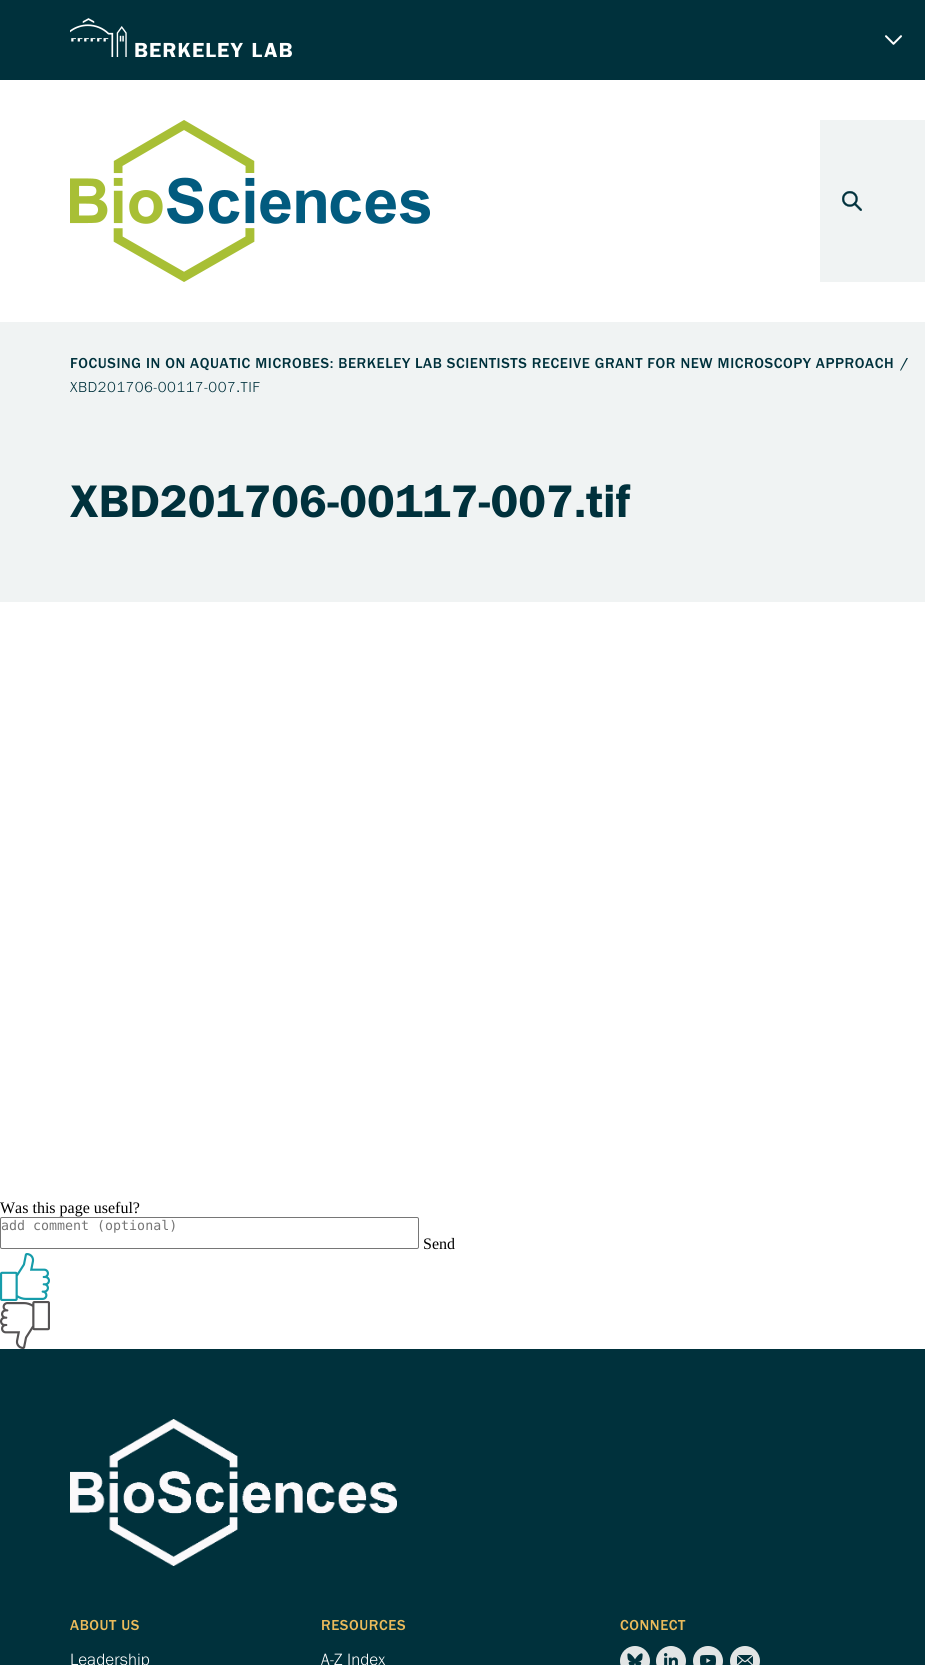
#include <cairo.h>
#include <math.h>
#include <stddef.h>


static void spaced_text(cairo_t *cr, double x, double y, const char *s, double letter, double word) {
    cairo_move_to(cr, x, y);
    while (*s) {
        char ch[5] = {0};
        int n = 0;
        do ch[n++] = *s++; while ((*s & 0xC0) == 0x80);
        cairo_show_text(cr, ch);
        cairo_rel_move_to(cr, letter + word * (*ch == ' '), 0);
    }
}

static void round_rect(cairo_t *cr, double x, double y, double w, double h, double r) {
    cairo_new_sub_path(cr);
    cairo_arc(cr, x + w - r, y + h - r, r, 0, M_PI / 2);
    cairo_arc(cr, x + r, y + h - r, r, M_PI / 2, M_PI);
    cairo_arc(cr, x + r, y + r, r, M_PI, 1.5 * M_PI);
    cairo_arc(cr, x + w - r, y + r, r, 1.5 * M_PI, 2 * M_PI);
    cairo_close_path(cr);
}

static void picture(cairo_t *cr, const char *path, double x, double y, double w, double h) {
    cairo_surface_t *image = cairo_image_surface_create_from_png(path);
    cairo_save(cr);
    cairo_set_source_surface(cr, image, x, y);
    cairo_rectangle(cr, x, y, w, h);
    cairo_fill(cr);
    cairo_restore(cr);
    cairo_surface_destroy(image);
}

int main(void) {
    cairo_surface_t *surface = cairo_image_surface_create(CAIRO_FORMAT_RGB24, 925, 1665);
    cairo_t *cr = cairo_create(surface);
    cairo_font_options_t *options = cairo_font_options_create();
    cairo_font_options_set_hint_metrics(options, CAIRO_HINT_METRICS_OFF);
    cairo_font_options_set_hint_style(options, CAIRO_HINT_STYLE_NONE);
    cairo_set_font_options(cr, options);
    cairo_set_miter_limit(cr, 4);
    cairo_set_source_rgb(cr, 1, 1, 1);
    cairo_paint(cr);
    cairo_set_source_rgb(cr, 0, 0.192, 0.235);
    cairo_rectangle(cr, 0, 0, 925, 80);
    cairo_fill(cr);
    picture(cr, "img1.png", 70, 18, 222, 39);
    picture(cr, "img2.png", 885, 35, 17, 10);
    picture(cr, "img3.png", 70, 120, 360, 162);
    cairo_set_source_rgb(cr, 0.941, 0.953, 0.953);
    cairo_rectangle(cr, 820, 120, 105, 162);
    cairo_fill(cr);
    picture(cr, "img4.png", 842, 191, 20, 20);
    cairo_rectangle(cr, 0, 322, 925, 280);
    cairo_fill(cr);
    cairo_select_font_face(cr, "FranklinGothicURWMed", CAIRO_FONT_SLANT_NORMAL, CAIRO_FONT_WEIGHT_NORMAL);
    cairo_set_font_size(cr, 14.98);
    cairo_set_source_rgb(cr, 0, 0.192, 0.235);
    spaced_text(cr, 70, 368, "FOCUSING IN ON AQUATIC MICROBES: BERKELEY LAB SCIENTISTS RECEIVE GRANT FOR NEW MICROSCOPY APPROACH", 0.6, 0);
    cairo_new_path(cr);
    cairo_move_to(cr, 908, 358);
    cairo_line_to(cr, 906.5, 358);
    cairo_line_to(cr, 900, 370.5);
    cairo_line_to(cr, 901, 370.5);
    cairo_close_path(cr);
    cairo_fill(cr);
    cairo_select_font_face(cr, "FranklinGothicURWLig", CAIRO_FONT_SLANT_NORMAL, CAIRO_FONT_WEIGHT_NORMAL);
    spaced_text(cr, 70, 392, "XBD201706-00117-007.TIF", 0.5, 0);
    cairo_select_font_face(cr, "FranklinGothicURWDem", CAIRO_FONT_SLANT_NORMAL, CAIRO_FONT_WEIGHT_NORMAL);
    cairo_set_font_size(cr, 47.25);
    spaced_text(cr, 70, 517, "XBD201706-00117-007.tif", 0.1, 0);
    cairo_select_font_face(cr, "Liberation Serif", CAIRO_FONT_SLANT_NORMAL, CAIRO_FONT_WEIGHT_NORMAL);
    cairo_set_font_size(cr, 16);
    cairo_set_source_rgb(cr, 0, 0, 0);
    cairo_move_to(cr, 0, 1213);
    cairo_show_text(cr, "Was this page useful?");
    round_rect(cr, 0.5, 1217.5, 418, 31, 1.5);
    cairo_set_source_rgb(cr, 0.463, 0.463, 0.463);
    cairo_set_line_width(cr, 1);
    cairo_stroke(cr);
    cairo_select_font_face(cr, "DejaVu Sans Mono", CAIRO_FONT_SLANT_NORMAL, CAIRO_FONT_WEIGHT_NORMAL);
    cairo_set_font_size(cr, 13.3);
    cairo_set_source_rgb(cr, 0.459, 0.459, 0.459);
    cairo_move_to(cr, 1, 1230);
    cairo_show_text(cr, "add comment (optional)");
    cairo_select_font_face(cr, "Liberation Serif", CAIRO_FONT_SLANT_NORMAL, CAIRO_FONT_WEIGHT_NORMAL);
    cairo_set_font_size(cr, 16);
    cairo_set_source_rgb(cr, 0, 0, 0);
    cairo_move_to(cr, 423, 1249);
    cairo_show_text(cr, "Send");
    picture(cr, "img5.png", 0, 1253, 50, 48);
    picture(cr, "img6.png", 0, 1301, 50, 48);
    cairo_set_source_rgb(cr, 0, 0.192, 0.235);
    cairo_rectangle(cr, 0, 1349, 925, 316);
    cairo_fill(cr);
    picture(cr, "img7.png", 70, 1419, 327, 147);
    cairo_select_font_face(cr, "FranklinGothicURWMed", CAIRO_FONT_SLANT_NORMAL, CAIRO_FONT_WEIGHT_NORMAL);
    cairo_set_font_size(cr, 14.98);
    cairo_set_source_rgb(cr, 0.918, 0.733, 0.357);
    spaced_text(cr, 70, 1630, "ABOUT US", 0.6, 0);
    cairo_select_font_face(cr, "FranklinGothicURWLig", CAIRO_FONT_SLANT_NORMAL, CAIRO_FONT_WEIGHT_NORMAL);
    cairo_set_font_size(cr, 17);
    cairo_set_source_rgb(cr, 1, 1, 1);
    spaced_text(cr, 70, 1665, "Leadership", 0.1, 0);
    cairo_select_font_face(cr, "FranklinGothicURWMed", CAIRO_FONT_SLANT_NORMAL, CAIRO_FONT_WEIGHT_NORMAL);
    cairo_set_font_size(cr, 14.98);
    cairo_set_source_rgb(cr, 0.918, 0.733, 0.357);
    spaced_text(cr, 321, 1630, "RESOURCES", 0.6, 0);
    cairo_select_font_face(cr, "FranklinGothicURWLig", CAIRO_FONT_SLANT_NORMAL, CAIRO_FONT_WEIGHT_NORMAL);
    cairo_set_font_size(cr, 17);
    cairo_set_source_rgb(cr, 1, 1, 1);
    spaced_text(cr, 321, 1665, "A-Z Index", 0.1, 0);
    cairo_select_font_face(cr, "FranklinGothicURWMed", CAIRO_FONT_SLANT_NORMAL, CAIRO_FONT_WEIGHT_NORMAL);
    cairo_set_font_size(cr, 14.98);
    cairo_set_source_rgb(cr, 0.918, 0.733, 0.357);
    spaced_text(cr, 620, 1630, "CONNECT", 0.6, 0);
    cairo_set_source_rgb(cr, 0.886, 0.898, 0.898);
    cairo_new_path(cr);
    cairo_arc(cr, 635, 1661, 15, 0, 2 * M_PI);
    cairo_fill(cr);
    picture(cr, "img8.png", 627, 1653, 16, 12);
    cairo_arc(cr, 671, 1661, 15, 0, 2 * M_PI);
    cairo_fill(cr);
    picture(cr, "img9.png", 664, 1653, 14, 12);
    cairo_arc(cr, 708, 1661, 15, 0, 2 * M_PI);
    cairo_fill(cr);
    picture(cr, "img10.png", 700, 1655, 16, 10);
    cairo_arc(cr, 745, 1661, 15, 0, 2 * M_PI);
    cairo_fill(cr);
    picture(cr, "img11.png", 737, 1655, 16, 10);
    cairo_surface_write_to_png(surface, "page.png");
    cairo_font_options_destroy(options);
    cairo_destroy(cr);
    cairo_surface_destroy(surface);
    return 0;
}
